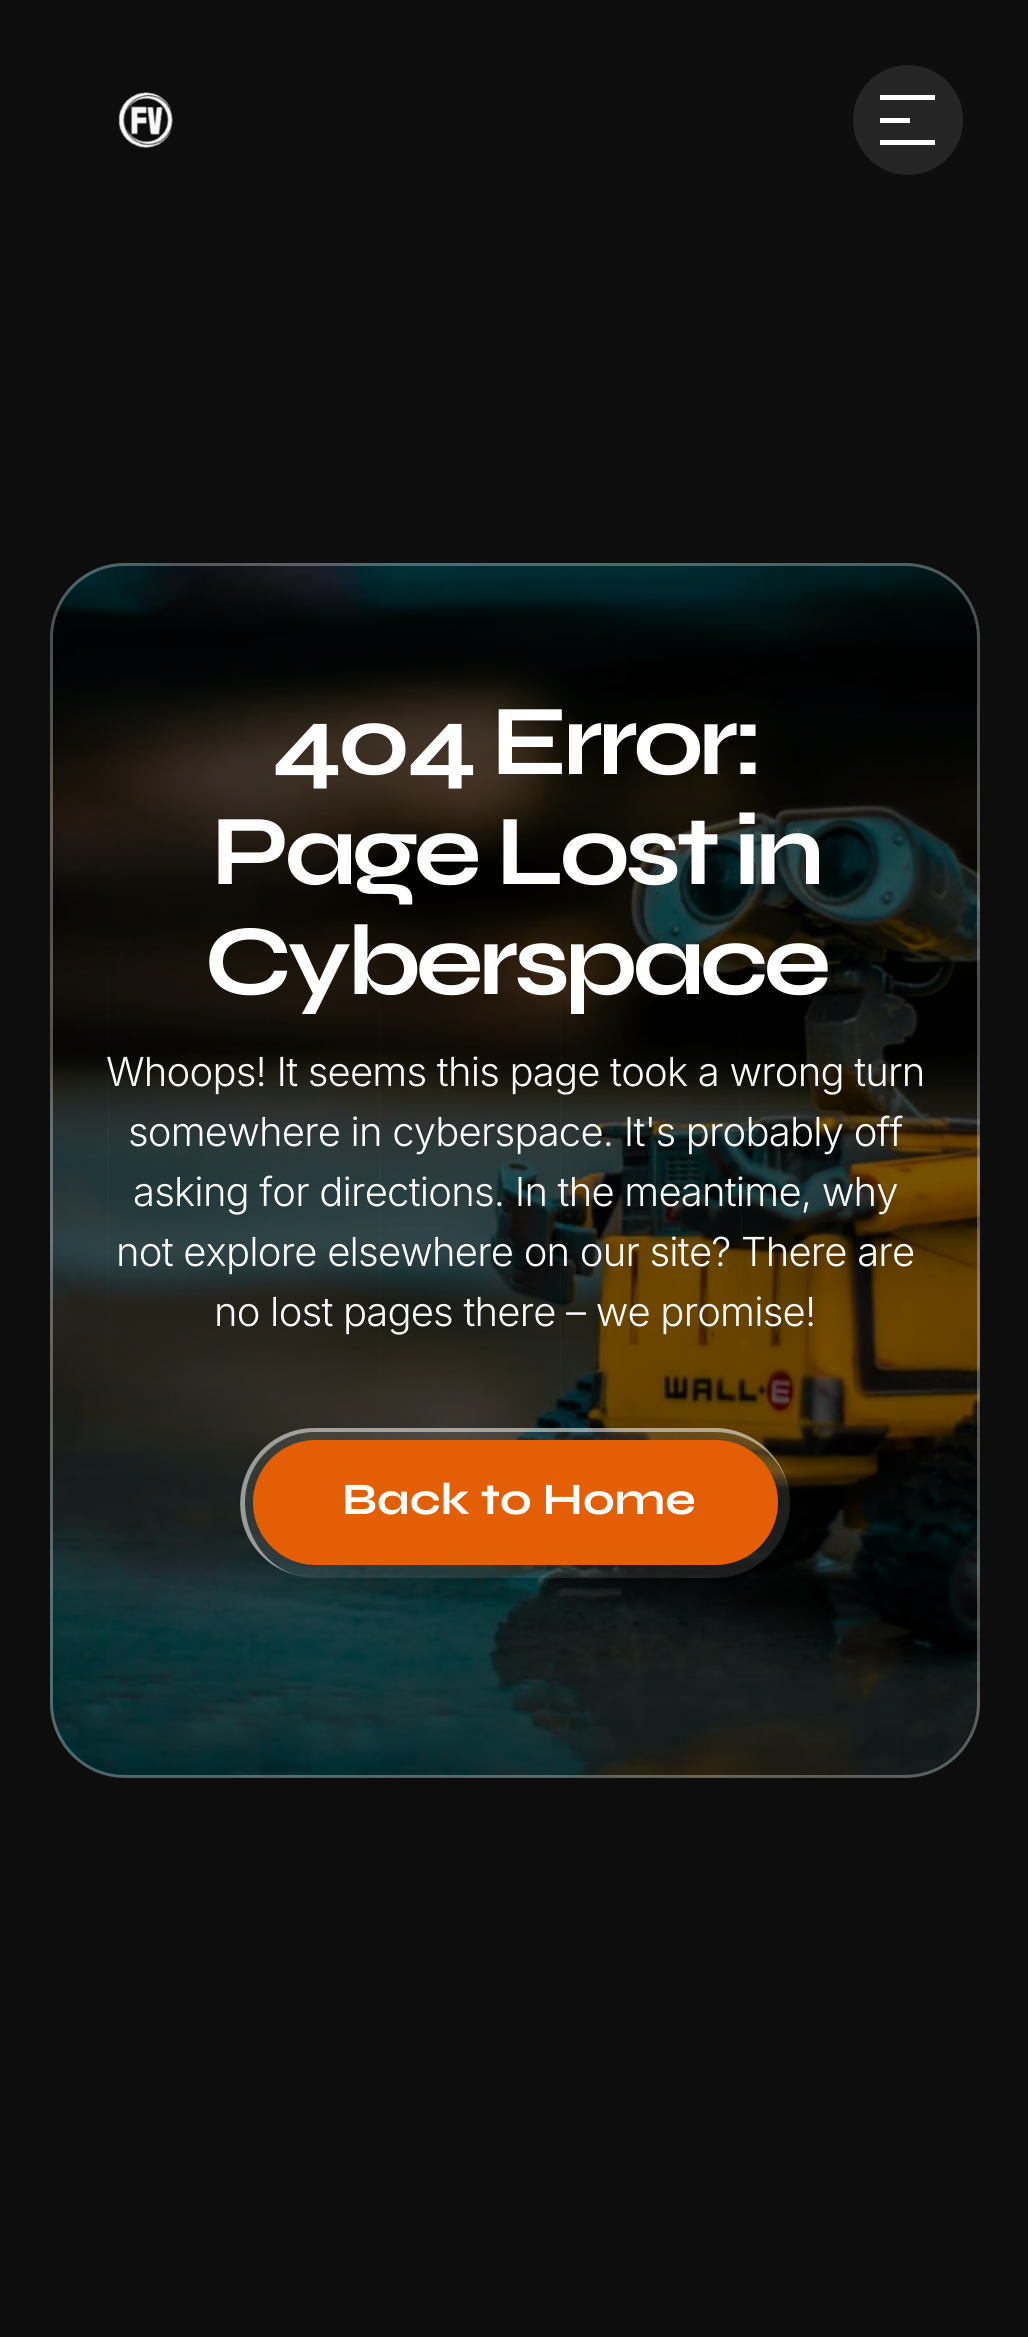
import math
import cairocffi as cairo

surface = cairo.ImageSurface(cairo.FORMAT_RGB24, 1028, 2337)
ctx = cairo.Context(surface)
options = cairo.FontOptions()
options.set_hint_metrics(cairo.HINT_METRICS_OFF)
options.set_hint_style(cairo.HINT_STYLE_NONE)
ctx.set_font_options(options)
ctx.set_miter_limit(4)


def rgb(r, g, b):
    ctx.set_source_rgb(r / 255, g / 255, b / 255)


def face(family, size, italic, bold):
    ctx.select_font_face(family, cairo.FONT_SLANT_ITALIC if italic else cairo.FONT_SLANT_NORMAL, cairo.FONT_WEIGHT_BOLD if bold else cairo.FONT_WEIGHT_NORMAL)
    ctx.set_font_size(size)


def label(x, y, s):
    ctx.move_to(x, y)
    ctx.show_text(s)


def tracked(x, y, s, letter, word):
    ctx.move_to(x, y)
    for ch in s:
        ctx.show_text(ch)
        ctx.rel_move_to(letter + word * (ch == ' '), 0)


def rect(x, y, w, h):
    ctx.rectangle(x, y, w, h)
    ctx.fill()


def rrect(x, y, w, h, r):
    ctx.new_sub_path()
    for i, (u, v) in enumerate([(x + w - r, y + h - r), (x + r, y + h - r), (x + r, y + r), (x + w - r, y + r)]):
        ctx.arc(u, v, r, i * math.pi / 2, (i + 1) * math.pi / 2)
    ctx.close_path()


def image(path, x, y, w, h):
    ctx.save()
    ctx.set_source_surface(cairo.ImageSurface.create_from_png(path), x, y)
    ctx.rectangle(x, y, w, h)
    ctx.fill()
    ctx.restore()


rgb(13, 13, 13)
ctx.paint()
image('image0.png', 118, 92, 55, 57)
rgb(37, 37, 37)
ctx.arc(908, 120, 55, 0, 2 * math.pi)
ctx.fill()
rgb(255, 255, 255)
rect(880, 95, 55, 5)
rect(880, 118, 30, 5)
rect(880, 140, 55, 5)
image('image1.png', 50, 562, 930, 1216)
rrect(51.5, 564.5, 927, 1212, 73.5)
ctx.set_source_rgba(1, 1, 1, 0.3)
ctx.set_line_width(3)
ctx.stroke()
face('Syne', 100, 0, 1)
rgb(255, 255, 255)
tracked(271, 774, '404 Error:', -5, 0)
tracked(211, 884, 'Page Lost in', -5, 0)
tracked(204, 994, 'Cyberspace', -5, 0)
face('Inter Light', 40, 0, 0)
tracked(106, 1086, 'Whoops! It seems this page took a wrong turn', -0.8, 0)
tracked(128, 1146, 'somewhere in cyberspace. It\'s probably off', -0.8, 0)
tracked(133, 1206, 'asking for directions. In the meantime, why', -0.8, 0)
tracked(116, 1266, 'not explore elsewhere on our site? There are', -0.8, 0)
tracked(214, 1326, 'no lost pages there – we promise!', -0.8, 0)
gradient = cairo.LinearGradient(253, 1396, 777, 1609)
gradient.add_color_stop_rgba(0, 1, 1, 1, 0.1)
gradient.add_color_stop_rgba(1, 1, 1, 1, 0.11)
ctx.set_source(gradient)
rrect(240, 1428, 550, 150, 75)
ctx.fill()
rgb(227, 94, 5)
rrect(253, 1440, 525, 125, 62.5)
ctx.fill()
face('Syne', 45, 0, 1)
rgb(255, 255, 255)
label(342, 1514, 'Back to Home')
ctx.set_source_rgba(1, 1, 1, 0.5)
ctx.new_path()
ctx.move_to(315, 1428)
ctx.curve_to(242, 1428, 212, 1523, 273, 1565)
ctx.curve_to(286, 1573, 300, 1578, 315, 1578)
ctx.curve_to(276, 1578, 245, 1544, 245, 1502)
ctx.curve_to(245, 1464, 276, 1432, 315, 1432)
ctx.line_to(715, 1432)
ctx.curve_to(752, 1432, 783, 1458, 789, 1491)
ctx.curve_to(783, 1455, 751, 1428, 715, 1428)
ctx.close_path()
ctx.fill()
surface.write_to_png('render.png')
